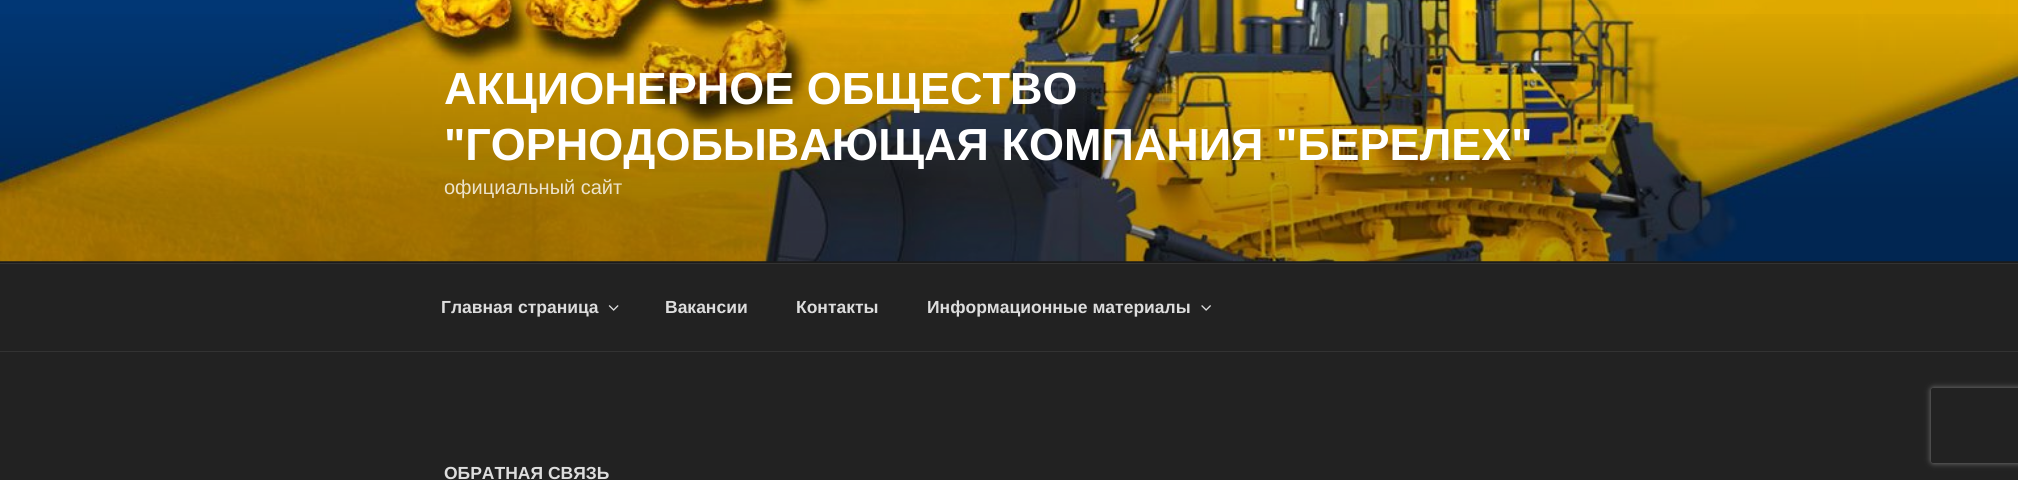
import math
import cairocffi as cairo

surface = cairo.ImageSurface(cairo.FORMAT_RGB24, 2018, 480)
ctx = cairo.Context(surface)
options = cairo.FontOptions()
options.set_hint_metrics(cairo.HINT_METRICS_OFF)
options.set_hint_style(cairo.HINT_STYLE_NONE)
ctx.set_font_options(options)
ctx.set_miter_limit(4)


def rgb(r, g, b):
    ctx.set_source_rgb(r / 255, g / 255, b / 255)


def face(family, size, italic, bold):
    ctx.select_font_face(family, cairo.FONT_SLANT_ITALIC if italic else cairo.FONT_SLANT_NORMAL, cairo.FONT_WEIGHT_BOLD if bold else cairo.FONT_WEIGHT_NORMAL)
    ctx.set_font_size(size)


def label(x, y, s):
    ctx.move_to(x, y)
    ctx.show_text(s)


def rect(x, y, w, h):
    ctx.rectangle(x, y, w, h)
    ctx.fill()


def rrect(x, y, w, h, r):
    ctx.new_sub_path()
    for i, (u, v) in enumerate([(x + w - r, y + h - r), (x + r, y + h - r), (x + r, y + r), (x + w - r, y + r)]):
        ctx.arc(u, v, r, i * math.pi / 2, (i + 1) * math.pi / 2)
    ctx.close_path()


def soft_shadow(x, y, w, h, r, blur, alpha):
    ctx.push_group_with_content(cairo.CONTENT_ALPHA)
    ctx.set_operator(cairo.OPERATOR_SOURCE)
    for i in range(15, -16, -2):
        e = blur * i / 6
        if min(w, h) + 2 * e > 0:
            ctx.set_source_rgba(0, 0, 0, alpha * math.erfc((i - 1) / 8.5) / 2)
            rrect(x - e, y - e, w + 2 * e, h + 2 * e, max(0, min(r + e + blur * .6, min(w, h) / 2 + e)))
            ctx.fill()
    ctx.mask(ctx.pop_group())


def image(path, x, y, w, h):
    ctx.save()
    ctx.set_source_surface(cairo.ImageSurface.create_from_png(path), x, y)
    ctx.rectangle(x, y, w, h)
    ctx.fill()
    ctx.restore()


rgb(34, 34, 34)
ctx.paint()
rgb(38, 38, 38)
rect(0, 261, 2018, 2)
image('image0.png', 0, 0, 2018, 262)
gradient = cairo.LinearGradient(1009, 0, 1009, 263)
gradient.add_color_stop_rgba(0, 0, 0, 0, 0)
gradient.add_color_stop_rgba(0.75, 0, 0, 0, 0.3)
gradient.add_color_stop_rgba(1, 0, 0, 0, 0.3)
ctx.set_source(gradient)
rect(0, 14, 2018, 249)
face('Liberation Sans', 45, 0, 1)
rgb(255, 255, 255)
label(444, 104, 'АКЦИОНЕРНОЕ ОБЩЕСТВО')
label(444, 160, '"ГОРНОДОБЫВАЮЩАЯ КОМПАНИЯ "БЕРЕЛЕХ"')
face('Liberation Sans', 20, 0, 0)
rgb(236, 227, 204)
label(444, 194, 'официальный сайт')
rgb(51, 51, 51)
rect(0, 263, 2018, 1)
rect(0, 351, 2018, 1)
face('Liberation Sans', 17.5, 0, 1)
rgb(221, 221, 221)
label(441, 313, 'Главная страница')
image('image1.png', 608, 305, 11, 6)
label(665, 313, 'Вакансии')
label(796, 313, 'Контакты')
label(927, 313, 'Информационные материалы')
image('image2.png', 1201, 305, 10, 6)
label(444, 479, 'ОБРАТНАЯ СВЯЗЬ')
ctx.save()
ctx.set_fill_rule(cairo.FILL_RULE_EVEN_ODD)
ctx.new_path()
ctx.move_to(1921, 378)
ctx.line_to(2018, 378)
ctx.line_to(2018, 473)
ctx.line_to(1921, 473)
ctx.close_path()
ctx.move_to(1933.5, 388)
ctx.line_to(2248.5, 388)
ctx.curve_to(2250, 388, 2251, 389, 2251, 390.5)
ctx.line_to(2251, 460.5)
ctx.curve_to(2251, 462, 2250, 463, 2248.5, 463)
ctx.line_to(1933.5, 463)
ctx.curve_to(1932, 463, 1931, 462, 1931, 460.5)
ctx.line_to(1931, 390.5)
ctx.curve_to(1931, 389, 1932, 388, 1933.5, 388)
ctx.close_path()
ctx.clip()
rgb(128, 128, 128)
soft_shadow(1931, 388, 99, 75, 2.5, 3, 1)
ctx.restore()
surface.write_to_png('render.png')
